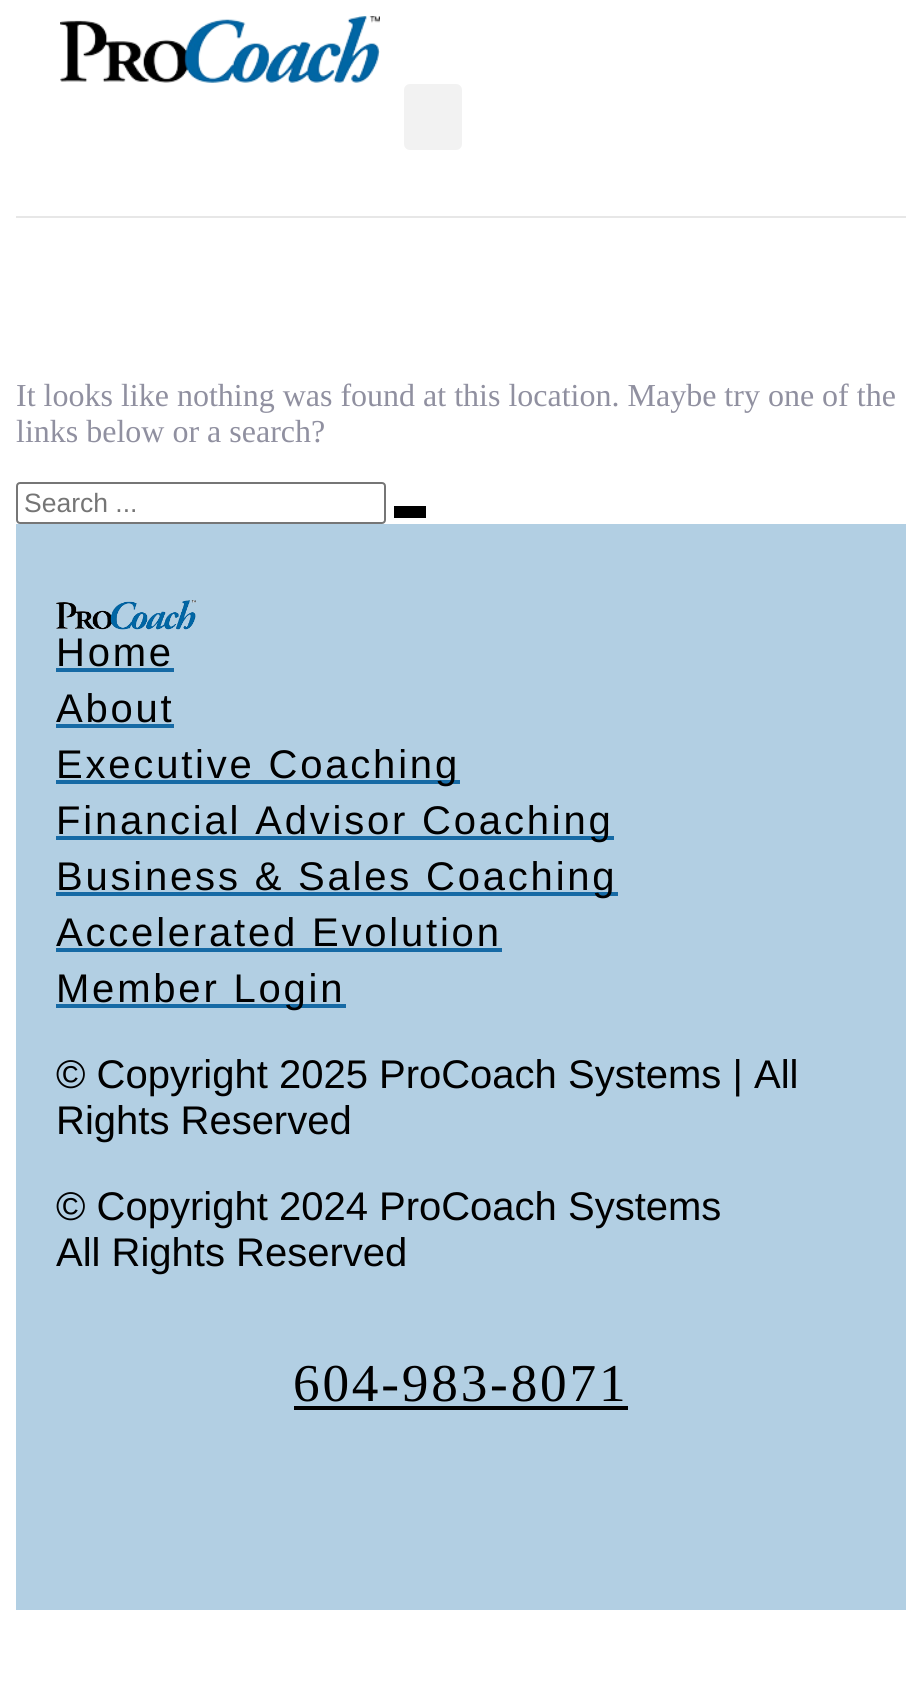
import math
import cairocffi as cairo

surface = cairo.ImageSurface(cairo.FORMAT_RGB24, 922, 1695)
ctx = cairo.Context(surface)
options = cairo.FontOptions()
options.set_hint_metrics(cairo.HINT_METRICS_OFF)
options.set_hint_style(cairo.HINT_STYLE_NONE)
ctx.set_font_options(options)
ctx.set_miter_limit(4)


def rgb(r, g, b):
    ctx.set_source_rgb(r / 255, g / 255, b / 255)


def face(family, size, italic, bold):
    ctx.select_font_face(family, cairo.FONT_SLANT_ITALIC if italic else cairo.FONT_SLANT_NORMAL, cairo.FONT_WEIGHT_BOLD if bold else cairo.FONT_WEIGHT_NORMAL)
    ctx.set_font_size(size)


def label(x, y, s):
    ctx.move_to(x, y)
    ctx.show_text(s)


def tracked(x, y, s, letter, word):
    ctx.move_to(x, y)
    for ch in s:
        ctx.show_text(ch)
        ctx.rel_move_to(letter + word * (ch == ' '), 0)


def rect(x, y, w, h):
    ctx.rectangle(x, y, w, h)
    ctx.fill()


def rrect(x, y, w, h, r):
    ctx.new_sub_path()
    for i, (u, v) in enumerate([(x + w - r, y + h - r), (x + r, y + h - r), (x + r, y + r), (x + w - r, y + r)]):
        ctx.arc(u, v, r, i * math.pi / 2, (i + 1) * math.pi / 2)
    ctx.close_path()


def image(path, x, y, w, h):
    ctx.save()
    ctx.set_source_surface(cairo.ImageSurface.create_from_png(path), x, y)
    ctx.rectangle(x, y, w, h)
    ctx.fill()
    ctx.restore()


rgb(255, 255, 255)
ctx.paint()
rgb(231, 231, 231)
rect(16, 216, 890, 2)
image('image0.png', 60, 16, 320, 67)
rgb(242, 242, 242)
rrect(404, 84, 58, 66, 6)
ctx.fill()
face('Liberation Serif', 32, 0, 0)
rgb(144, 144, 160)
label(16, 406, 'It looks like nothing was found at this location. Maybe try one of the')
label(16, 442, 'links below or a search?')
rrect(17, 483, 368, 40, 3)
rgb(118, 118, 118)
ctx.stroke()
face('Liberation Sans', 26.5, 0, 0)
rgb(117, 117, 117)
label(24, 512, 'Search ...')
rgb(0, 0, 0)
rect(394, 506, 32, 12)
rgb(178, 207, 227)
rect(16, 524, 890, 1086)
image('image1.png', 56, 600, 140, 30)
face('Liberation Sans', 40, 0, 0)
rgb(0, 0, 0)
tracked(56, 666, 'Home', 2.8, 0)
rgb(22, 106, 165)
rect(56, 668, 118, 4)
rgb(0, 0, 0)
tracked(56, 722, 'About', 2.8, 0)
rgb(22, 106, 165)
rect(56, 724, 118, 4)
rect(56, 780, 404, 4)
rgb(0, 0, 0)
tracked(56, 778, 'Executive Coaching', 2.8, 0)
rgb(22, 106, 165)
rect(56, 836, 558, 4)
rgb(0, 0, 0)
tracked(56, 834, 'Financial Advisor Coaching', 2.8, 0)
rgb(22, 106, 165)
rect(56, 892, 562, 4)
rgb(0, 0, 0)
tracked(56, 890, 'Business & Sales Coaching', 2.8, 0)
tracked(56, 946, 'Accelerated Evolution', 2.8, 0)
rgb(22, 106, 165)
rect(56, 948, 446, 4)
rect(56, 1004, 290, 4)
rgb(0, 0, 0)
tracked(56, 1002, 'Member Login', 2.8, 0)
label(56, 1088, '© Copyright 2025 ProCoach Systems | All')
label(56, 1134, 'Rights Reserved')
label(56, 1220, '© Copyright 2024 ProCoach Systems')
label(56, 1266, 'All Rights Reserved')
face('Liberation Serif', 53.25, 0, 0)
tracked(293, 1401, '604-983-8071', 2.8, 0)
rect(294, 1406, 334, 4)
surface.write_to_png('render.png')
